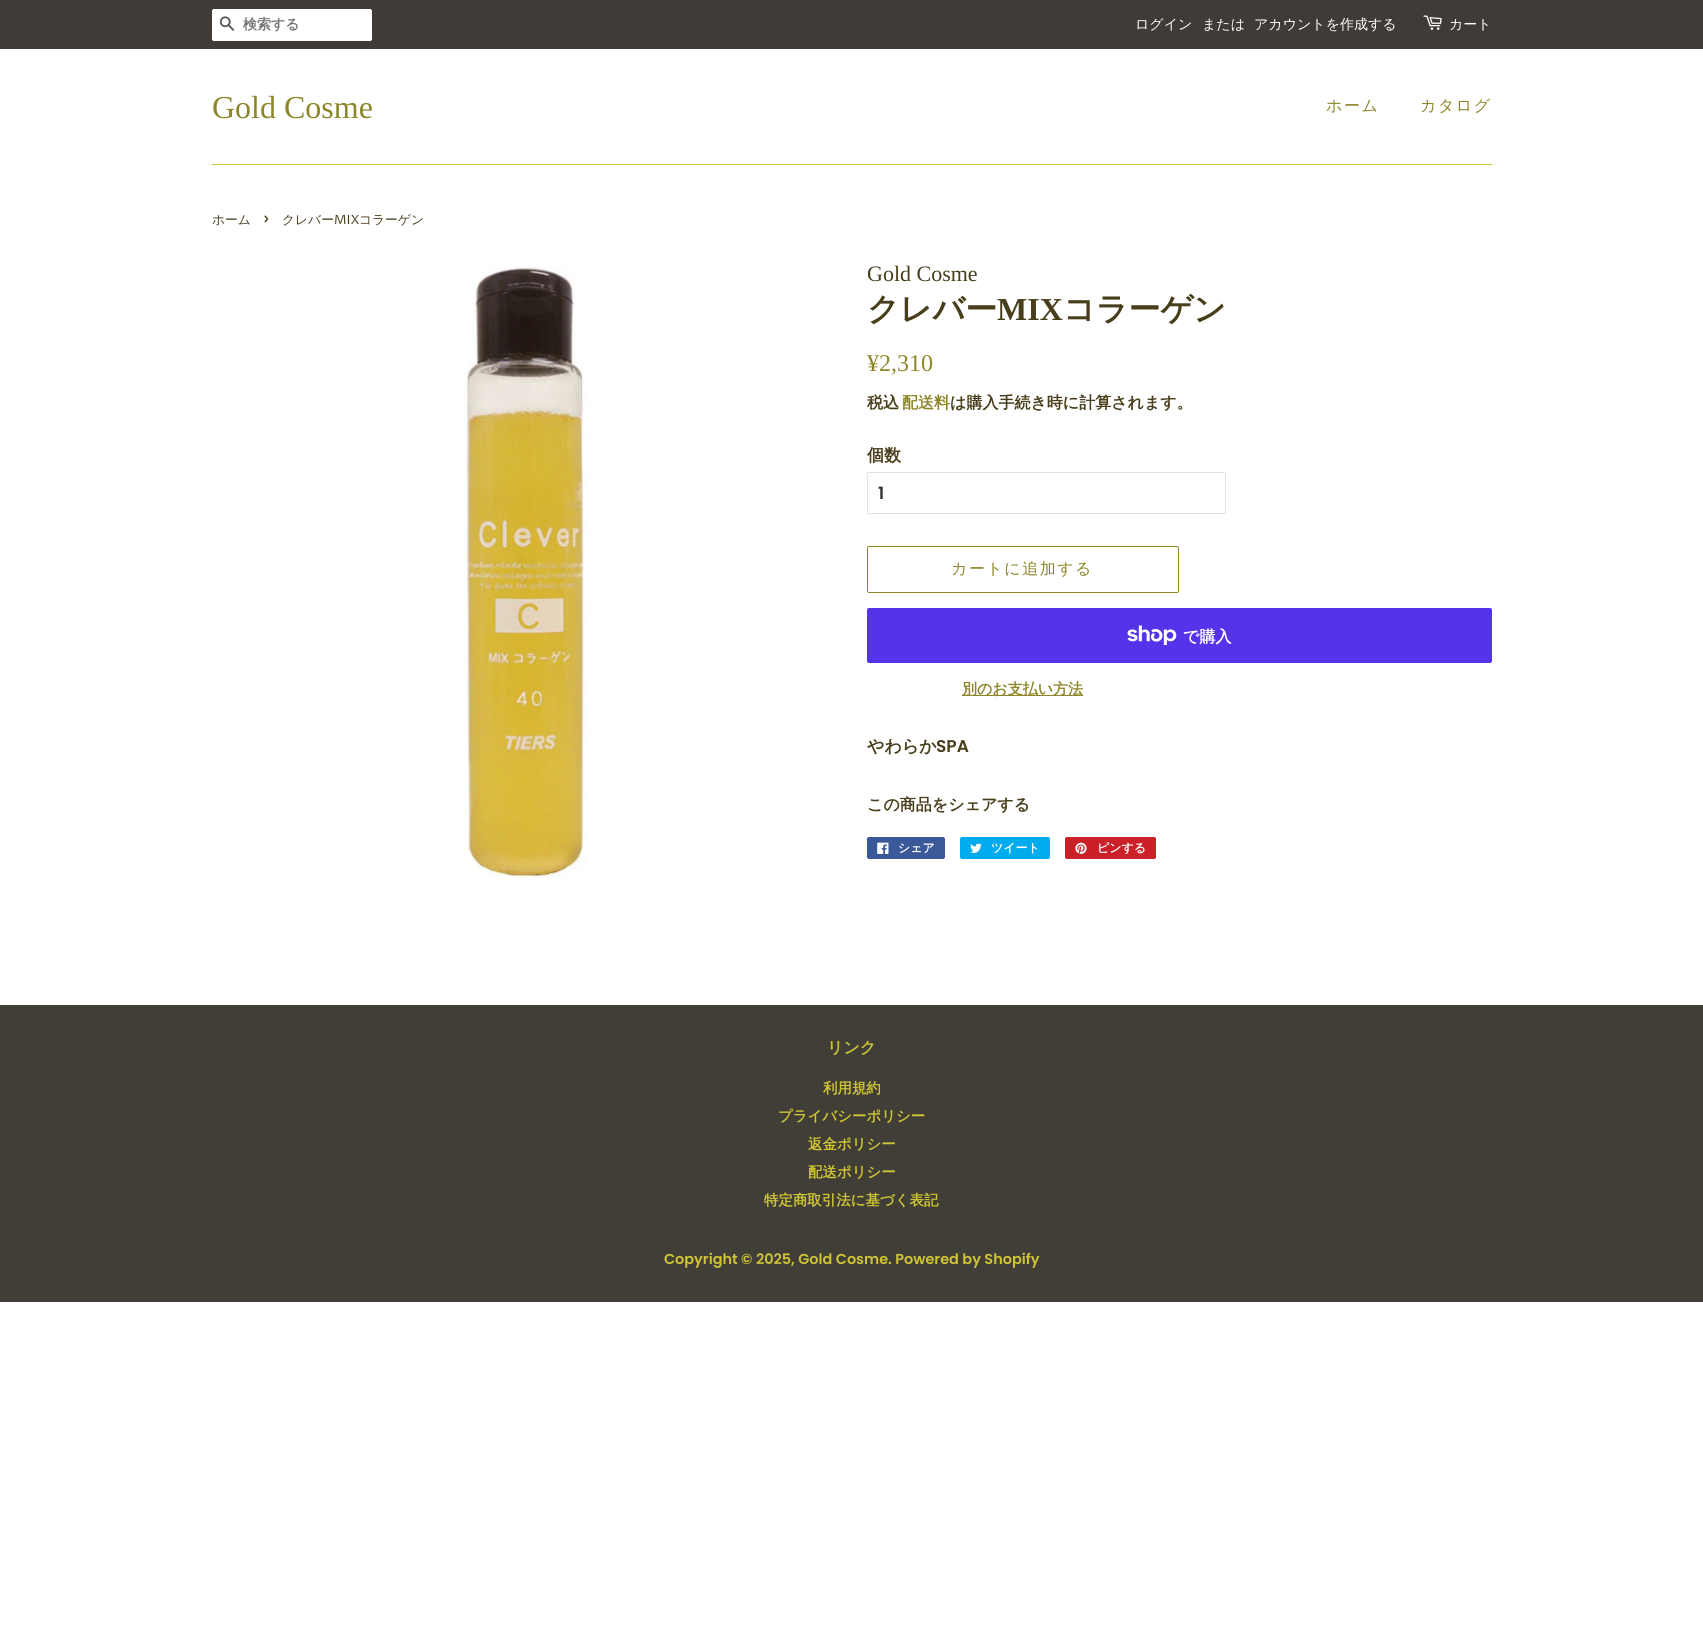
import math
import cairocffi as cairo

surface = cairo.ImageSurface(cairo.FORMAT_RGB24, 1703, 1629)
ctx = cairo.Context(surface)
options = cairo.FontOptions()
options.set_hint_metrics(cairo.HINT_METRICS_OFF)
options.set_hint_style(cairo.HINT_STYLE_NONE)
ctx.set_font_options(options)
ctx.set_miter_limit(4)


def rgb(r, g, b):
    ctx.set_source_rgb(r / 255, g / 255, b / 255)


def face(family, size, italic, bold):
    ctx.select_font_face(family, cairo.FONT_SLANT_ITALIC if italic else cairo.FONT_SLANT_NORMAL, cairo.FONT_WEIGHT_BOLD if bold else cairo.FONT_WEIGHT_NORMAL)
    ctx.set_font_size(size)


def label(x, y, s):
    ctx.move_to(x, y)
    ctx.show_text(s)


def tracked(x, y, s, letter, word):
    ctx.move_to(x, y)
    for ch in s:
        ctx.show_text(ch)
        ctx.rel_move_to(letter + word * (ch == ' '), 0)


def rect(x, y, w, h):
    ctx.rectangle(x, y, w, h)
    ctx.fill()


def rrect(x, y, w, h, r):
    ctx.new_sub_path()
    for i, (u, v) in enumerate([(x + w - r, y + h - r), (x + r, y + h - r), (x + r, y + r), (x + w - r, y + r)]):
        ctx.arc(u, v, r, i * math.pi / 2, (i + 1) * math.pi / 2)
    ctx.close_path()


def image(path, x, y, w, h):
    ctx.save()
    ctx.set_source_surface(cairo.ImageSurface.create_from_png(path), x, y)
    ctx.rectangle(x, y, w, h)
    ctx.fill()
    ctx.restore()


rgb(255, 255, 255)
ctx.paint()
rgb(64, 59, 55)
rect(0, 0, 1703, 49)
rgb(255, 255, 255)
rrect(212, 9, 160, 32, 2)
ctx.fill()
image('image0.png', 219, 16, 16, 15)
face('WenQuanYi Zen Hei', 14, 0, 1)
rgb(117, 117, 117)
label(243, 29, '検索する')
face('WenQuanYi Zen Hei Medium', 14, 0, 0)
rgb(255, 255, 255)
label(1135, 29, 'ログイン')
label(1202, 29, 'または')
label(1254, 29, 'アカウントを作成する')
image('image1.png', 1423, 15, 19, 15)
label(1449, 29, 'カート')
rgb(206, 196, 53)
rect(212, 164, 1280, 1)
face('Liberation Serif', 32, 0, 0)
rgb(142, 135, 42)
label(212, 118, 'Gold Cosme')
face('WenQuanYi Zen Hei Medium', 16, 0, 0)
tracked(1326, 111, 'ホーム', 1.5, 0)
tracked(1420, 111, 'カタログ', 1.5, 0)
face('WenQuanYi Zen Hei Medium', 12.75, 0, 0)
rgb(72, 62, 27)
label(212, 224, 'ホーム')
face('Proza Libre', 18, 0, 0)
label(263, 224, '›')
face('WenQuanYi Zen Hei Medium', 12.75, 0, 0)
label(282, 224, 'クレバー')
face('Proza Libre', 12.75, 0, 0)
label(334, 224, 'MIX')
face('WenQuanYi Zen Hei Medium', 12.75, 0, 0)
label(359, 224, 'コラーゲン')
image('image2.png', 462, 267, 125, 610)
face('Liberation Serif', 22, 0, 0)
label(867, 281, 'Gold Cosme')
face('WenQuanYi Zen Hei', 32, 0, 1)
label(867, 320, 'クレバー')
face('Liberation Serif', 32, 0, 1)
label(997, 320, 'MIX')
face('WenQuanYi Zen Hei', 32, 0, 1)
label(1063, 320, 'コラーゲン')
face('Liberation Serif', 24, 0, 0)
rgb(142, 135, 42)
label(867, 371, '¥2,310')
face('WenQuanYi Zen Hei', 16, 0, 1)
rgb(72, 62, 27)
label(867, 408, '税込')
rgb(142, 135, 42)
label(902, 408, '配送料')
rgb(72, 62, 27)
label(950, 408, 'は購入手続き時に計算されます。')
face('WenQuanYi Zen Hei', 17, 0, 1)
label(867, 461, '個数')
rrect(867.5, 472.5, 358, 41, 1.5)
rgb(228, 226, 221)
ctx.set_line_width(1)
ctx.stroke()
face('Poppins SemiBold', 17, 0, 0)
rgb(51, 51, 51)
label(878, 499, '1')
rrect(867.5, 546.5, 311, 46, 1.5)
rgb(142, 135, 42)
ctx.stroke()
face('WenQuanYi Zen Hei Medium', 16, 0, 0)
tracked(951, 574, 'カートに追加する', 1.5, 0)
rgb(84, 51, 235)
rrect(867, 608, 625, 55, 2)
ctx.fill()
image('image3.png', 1127, 625, 50, 20)
face('WenQuanYi Zen Hei', 16, 0, 1)
rgb(255, 255, 255)
label(1183, 642, 'で購入')
rgb(142, 135, 42)
rect(962, 695, 121, 1)
face('WenQuanYi Zen Hei', 15, 0, 1)
label(962, 694, '別のお支払い方法')
face('WenQuanYi Zen Hei', 17, 0, 1)
rgb(72, 62, 27)
label(867, 752, 'やわらか')
face('Poppins SemiBold', 17, 0, 0)
label(936, 752, 'SPA')
face('WenQuanYi Zen Hei', 16, 0, 1)
label(867, 810, 'この商品をシェアする')
rgb(59, 89, 152)
rrect(867, 837, 78, 22, 2)
ctx.fill()
image('image4.png', 877, 842, 12, 12)
face('WenQuanYi Zen Hei', 12, 0, 1)
rgb(255, 255, 255)
label(898, 852, 'シェア')
rgb(0, 172, 237)
rrect(960, 837, 90, 22, 2)
ctx.fill()
image('image5.png', 970, 843, 12, 10)
rgb(255, 255, 255)
label(991, 852, 'ツイート')
rgb(203, 32, 39)
rrect(1065, 837, 91, 22, 2)
ctx.fill()
image('image6.png', 1075, 842, 12, 12)
rgb(255, 255, 255)
label(1097, 852, 'ピンする')
rgb(64, 62, 55)
rect(0, 1005, 1703, 297)
face('WenQuanYi Zen Hei', 16, 0, 1)
rgb(206, 196, 53)
label(827, 1053, 'リンク')
face('WenQuanYi Zen Hei', 14.45, 0, 1)
label(823, 1093, '利用規約')
label(778, 1121, 'プライバシーポリシー')
label(808, 1149, '返金ポリシー')
label(808, 1177, '配送ポリシー')
label(764, 1205, '特定商取引法に基づく表記')
face('Poppins SemiBold', 14.45, 0, 0)
label(664, 1264, 'Copyright © 2025, Gold Cosme. Powered by Shopify')
surface.write_to_png('render.png')
